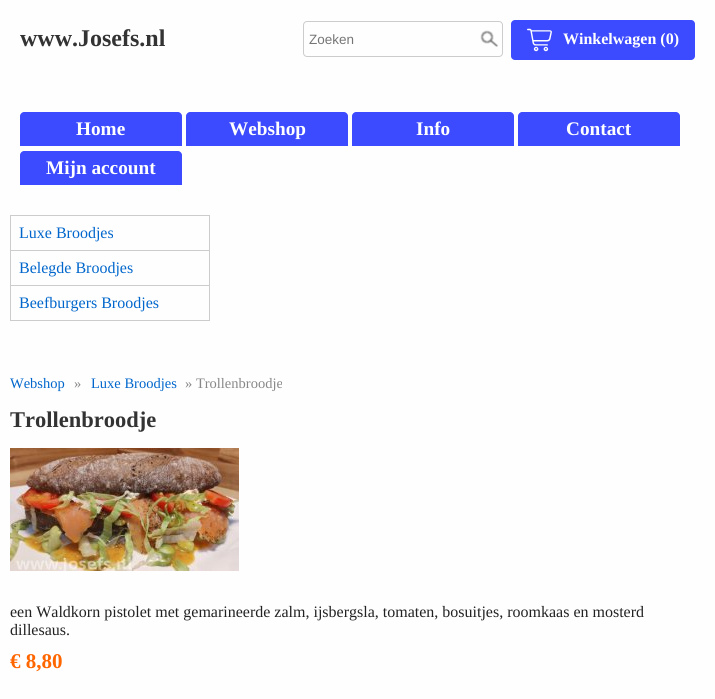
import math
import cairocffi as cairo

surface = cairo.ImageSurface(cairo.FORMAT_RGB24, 715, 699)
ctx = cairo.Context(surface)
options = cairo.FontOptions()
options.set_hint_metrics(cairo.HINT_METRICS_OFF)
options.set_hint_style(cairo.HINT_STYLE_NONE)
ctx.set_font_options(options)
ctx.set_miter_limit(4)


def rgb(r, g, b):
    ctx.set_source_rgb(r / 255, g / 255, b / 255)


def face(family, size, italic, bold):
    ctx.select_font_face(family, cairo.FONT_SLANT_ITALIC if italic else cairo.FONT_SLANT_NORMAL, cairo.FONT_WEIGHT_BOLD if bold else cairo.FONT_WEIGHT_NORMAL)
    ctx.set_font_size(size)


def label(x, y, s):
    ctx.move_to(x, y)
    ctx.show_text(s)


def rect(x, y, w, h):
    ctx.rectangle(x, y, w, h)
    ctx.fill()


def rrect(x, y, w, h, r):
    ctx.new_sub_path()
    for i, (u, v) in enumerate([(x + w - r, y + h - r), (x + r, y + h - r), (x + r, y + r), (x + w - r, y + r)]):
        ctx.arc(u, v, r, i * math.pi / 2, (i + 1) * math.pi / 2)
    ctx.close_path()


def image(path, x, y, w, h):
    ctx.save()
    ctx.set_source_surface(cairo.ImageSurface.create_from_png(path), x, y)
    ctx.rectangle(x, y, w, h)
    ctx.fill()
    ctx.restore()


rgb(254, 254, 254)
ctx.paint()
face('Liberation Serif', 24, 0, 1)
rgb(51, 51, 51)
label(20, 46, 'www.Josefs.nl')
rrect(303.5, 21.5, 199, 35, 3.5)
rgb(204, 204, 204)
ctx.set_line_width(1)
ctx.stroke()
face('Liberation Sans', 13.5, 0, 0)
rgb(117, 117, 117)
label(309, 44, 'Zoeken')
image('image0.png', 480, 30, 18, 17)
rgb(60, 75, 255)
rrect(511, 20, 184, 40, 4)
ctx.fill()
image('image1.png', 527, 28, 25, 24)
face('Liberation Serif', 16, 0, 1)
rgb(255, 255, 255)
label(563, 44, 'Winkelwagen (0)')
rgb(60, 75, 255)
ctx.new_path()
ctx.move_to(24, 112)
ctx.line_to(178, 112)
ctx.curve_to(180, 112, 182, 114, 182, 116)
ctx.line_to(182, 146)
ctx.line_to(20, 146)
ctx.line_to(20, 116)
ctx.curve_to(20, 114, 22, 112, 24, 112)
ctx.close_path()
ctx.fill()
face('Liberation Serif', 19.25, 0, 1)
rgb(255, 255, 255)
label(76, 135, 'Home')
rgb(60, 75, 255)
ctx.new_path()
ctx.move_to(190, 112)
ctx.line_to(344, 112)
ctx.curve_to(346, 112, 348, 114, 348, 116)
ctx.line_to(348, 146)
ctx.line_to(186, 146)
ctx.line_to(186, 116)
ctx.curve_to(186, 114, 188, 112, 190, 112)
ctx.close_path()
ctx.fill()
rgb(255, 255, 255)
label(229, 135, 'Webshop')
rgb(60, 75, 255)
ctx.new_path()
ctx.move_to(356, 112)
ctx.line_to(510, 112)
ctx.curve_to(512, 112, 514, 114, 514, 116)
ctx.line_to(514, 146)
ctx.line_to(352, 146)
ctx.line_to(352, 116)
ctx.curve_to(352, 114, 354, 112, 356, 112)
ctx.close_path()
ctx.fill()
rgb(255, 255, 255)
label(416, 135, 'Info')
rgb(60, 75, 255)
ctx.new_path()
ctx.move_to(522, 112)
ctx.line_to(676, 112)
ctx.curve_to(678, 112, 680, 114, 680, 116)
ctx.line_to(680, 146)
ctx.line_to(518, 146)
ctx.line_to(518, 116)
ctx.curve_to(518, 114, 520, 112, 522, 112)
ctx.close_path()
ctx.fill()
rgb(255, 255, 255)
label(566, 135, 'Contact')
rgb(60, 75, 255)
ctx.new_path()
ctx.move_to(24, 151)
ctx.line_to(178, 151)
ctx.curve_to(180, 151, 182, 153, 182, 155)
ctx.line_to(182, 185)
ctx.line_to(20, 185)
ctx.line_to(20, 155)
ctx.curve_to(20, 153, 22, 151, 24, 151)
ctx.close_path()
ctx.fill()
rgb(255, 255, 255)
label(46, 174, 'Mijn account')
ctx.rectangle(10.5, 215.5, 199, 105)
rgb(204, 204, 204)
ctx.stroke()
rect(11, 250, 198, 1)
face('Liberation Serif', 16, 0, 0)
rgb(0, 102, 204)
label(19, 238, 'Luxe Broodjes')
rgb(204, 204, 204)
rect(11, 285, 198, 1)
rgb(0, 102, 204)
label(19, 273, 'Belegde Broodjes')
label(19, 308, 'Beefburgers Broodjes')
face('Liberation Serif', 14.5, 0, 0)
label(10, 388, 'Webshop')
rgb(136, 136, 136)
label(74, 388, '»')
rgb(0, 102, 204)
label(91, 388, 'Luxe Broodjes')
rgb(136, 136, 136)
label(185, 388, '» Trollenbroodje')
face('Liberation Serif', 22.5, 0, 1)
rgb(51, 51, 51)
label(10, 427, 'Trollenbroodje')
image('image2.png', 10, 448, 229, 123)
face('Liberation Serif', 16, 0, 0)
rgb(34, 34, 34)
label(10, 617, 'een Waldkorn pistolet met gemarineerde zalm, ijsbergsla, tomaten, bosuitjes, roomkaas en mosterd')
label(10, 635, 'dillesaus.')
face('Liberation Serif', 21, 0, 1)
rgb(255, 102, 0)
label(10, 668, '€ 8,80')
surface.write_to_png('render.png')
